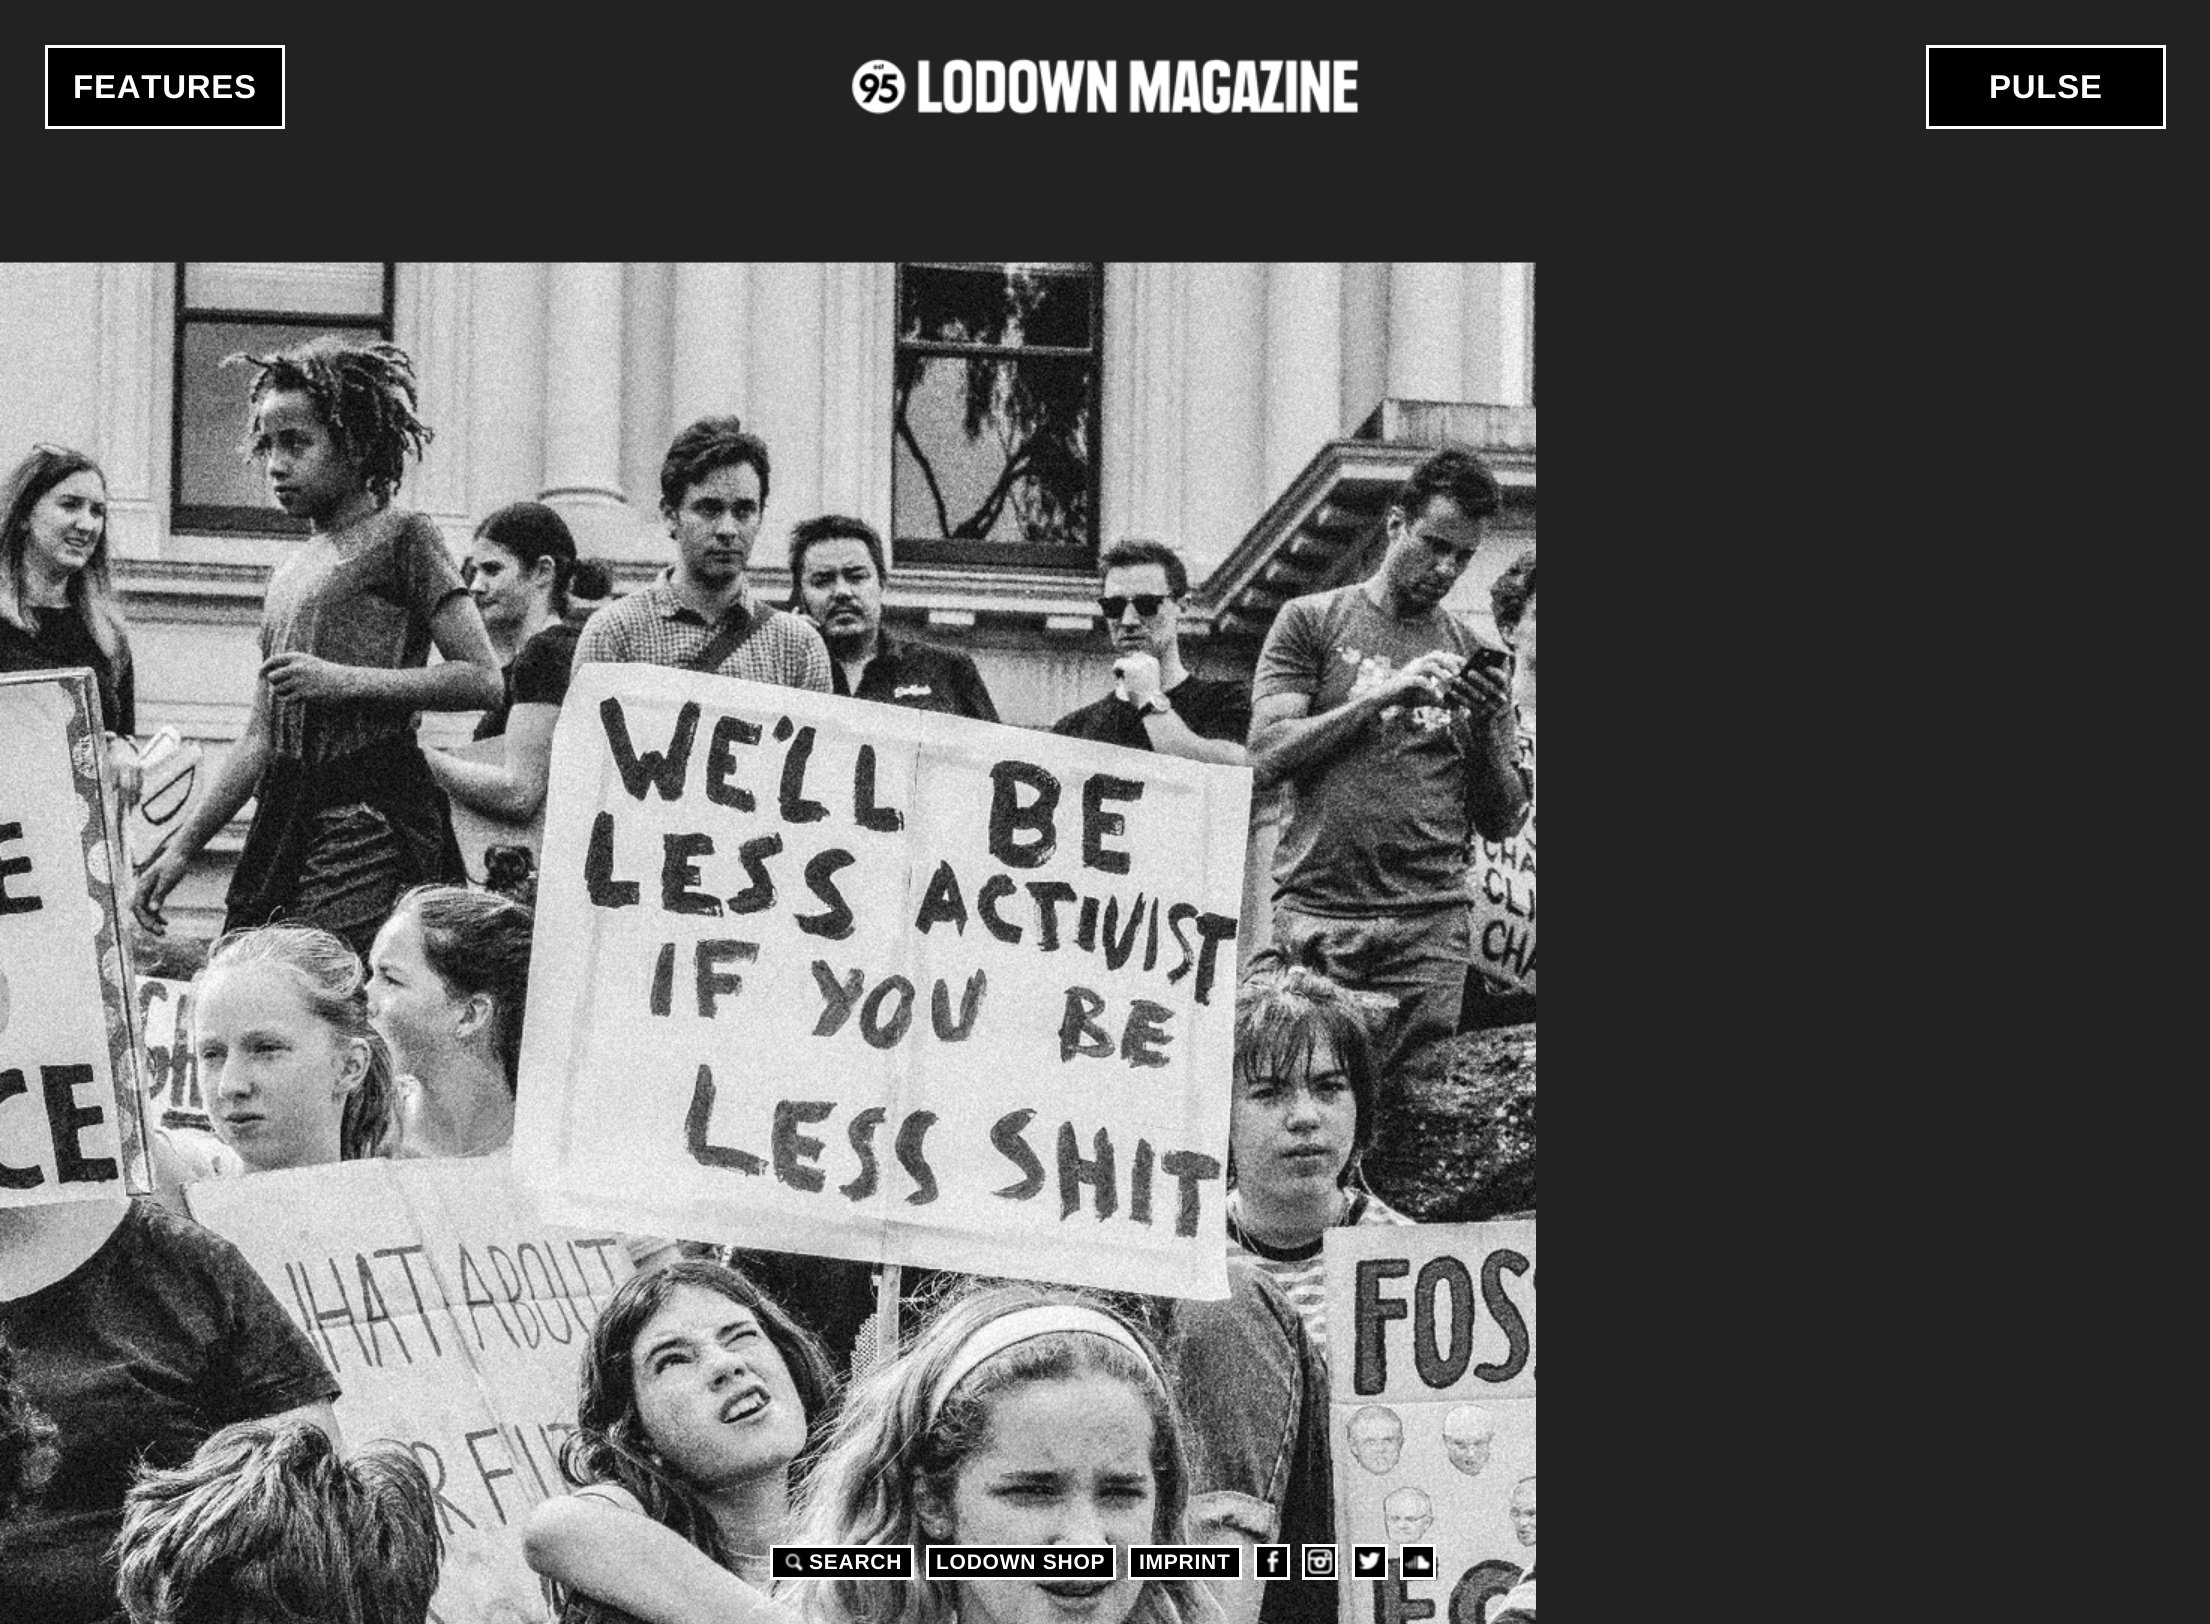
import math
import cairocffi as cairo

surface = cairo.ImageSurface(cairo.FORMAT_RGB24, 2210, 1624)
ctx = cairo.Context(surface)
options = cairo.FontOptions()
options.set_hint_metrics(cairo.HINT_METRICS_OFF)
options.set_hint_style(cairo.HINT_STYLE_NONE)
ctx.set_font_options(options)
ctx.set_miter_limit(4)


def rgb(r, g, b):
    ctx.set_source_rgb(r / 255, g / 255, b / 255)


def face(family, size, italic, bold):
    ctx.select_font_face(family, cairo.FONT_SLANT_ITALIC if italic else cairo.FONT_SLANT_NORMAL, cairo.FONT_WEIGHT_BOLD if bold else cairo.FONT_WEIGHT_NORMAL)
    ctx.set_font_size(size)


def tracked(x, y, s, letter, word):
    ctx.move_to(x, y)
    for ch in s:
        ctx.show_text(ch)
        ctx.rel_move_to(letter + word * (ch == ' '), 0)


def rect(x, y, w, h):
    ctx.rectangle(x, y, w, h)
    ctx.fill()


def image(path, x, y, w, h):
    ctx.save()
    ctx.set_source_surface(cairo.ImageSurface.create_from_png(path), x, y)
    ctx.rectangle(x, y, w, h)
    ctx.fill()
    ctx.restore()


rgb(34, 34, 34)
ctx.paint()
image('image0.png', 851, 58, 508, 57)
rgb(0, 0, 0)
ctx.rectangle(46.5, 46.5, 237, 81)
ctx.fill_preserve()
rgb(255, 255, 255)
ctx.set_line_width(3)
ctx.stroke()
face('Liberation Sans', 33, 0, 1)
tracked(73, 98, 'FEATURES', 0.75, 0)
rgb(0, 0, 0)
ctx.rectangle(1927.5, 46.5, 237, 81)
ctx.fill_preserve()
rgb(255, 255, 255)
ctx.stroke()
tracked(1989, 98, 'PULSE', 0.75, 0)
image('image1.png', 0, 262, 1536, 1362)
rgb(0, 0, 0)
ctx.rectangle(771.5, 1546.5, 141, 32)
ctx.fill_preserve()
rgb(255, 255, 255)
ctx.stroke()
image('image2.png', 785, 1553, 19, 19)
face('Liberation Sans', 21, 0, 1)
tracked(809, 1569, 'SEARCH', 0.75, 0)
rgb(0, 0, 0)
ctx.rectangle(927.5, 1546.5, 187, 32)
ctx.fill_preserve()
rgb(255, 255, 255)
ctx.stroke()
tracked(936, 1569, 'LODOWN SHOP', 0.75, 0)
rgb(0, 0, 0)
ctx.rectangle(1129.5, 1546.5, 111, 32)
ctx.fill_preserve()
rgb(255, 255, 255)
ctx.stroke()
tracked(1139, 1569, 'IMPRINT', 0.75, 0)
rgb(0, 0, 0)
rect(1257, 1547, 30, 30)
image('image3.png', 1266, 1550, 13, 23)
ctx.rectangle(1255.5, 1545.5, 33, 33)
rgb(255, 255, 255)
ctx.stroke()
rgb(0, 0, 0)
rect(1305, 1547, 30, 30)
image('image4.png', 1307, 1548, 26, 27)
ctx.rectangle(1303.5, 1545.5, 33, 33)
rgb(255, 255, 255)
ctx.stroke()
rgb(0, 0, 0)
rect(1355, 1547, 30, 30)
image('image5.png', 1358, 1551, 23, 19)
ctx.rectangle(1353.5, 1545.5, 33, 33)
rgb(255, 255, 255)
ctx.stroke()
rgb(0, 0, 0)
rect(1403, 1547, 30, 30)
image('image6.png', 1404, 1554, 27, 16)
ctx.rectangle(1401.5, 1545.5, 33, 33)
rgb(255, 255, 255)
ctx.stroke()
surface.write_to_png('render.png')
